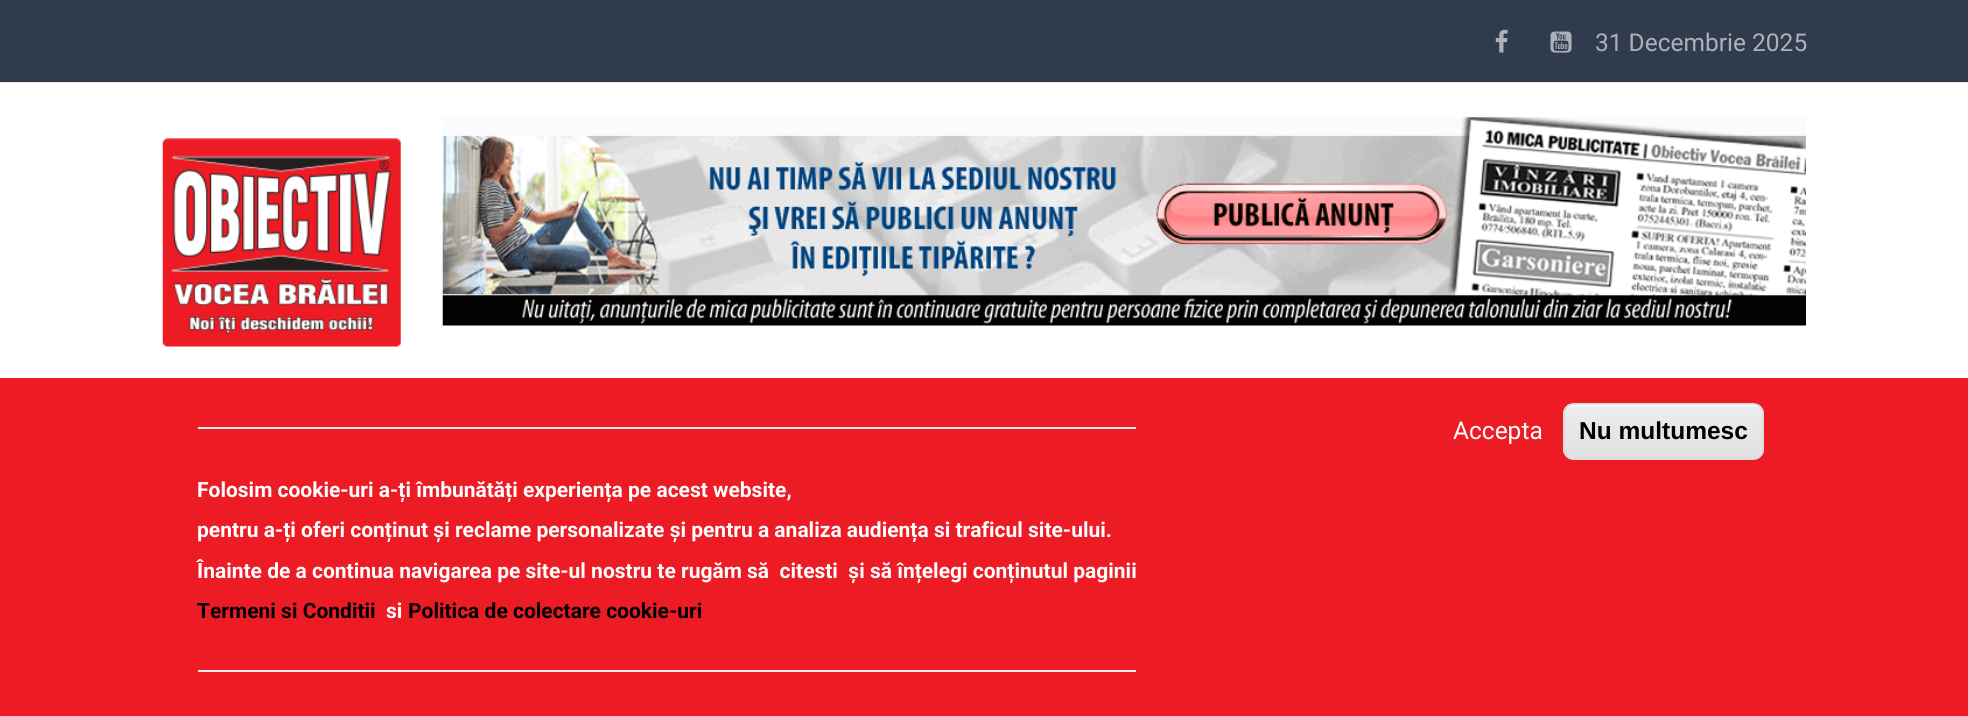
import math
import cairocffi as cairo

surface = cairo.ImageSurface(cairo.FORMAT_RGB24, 1968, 716)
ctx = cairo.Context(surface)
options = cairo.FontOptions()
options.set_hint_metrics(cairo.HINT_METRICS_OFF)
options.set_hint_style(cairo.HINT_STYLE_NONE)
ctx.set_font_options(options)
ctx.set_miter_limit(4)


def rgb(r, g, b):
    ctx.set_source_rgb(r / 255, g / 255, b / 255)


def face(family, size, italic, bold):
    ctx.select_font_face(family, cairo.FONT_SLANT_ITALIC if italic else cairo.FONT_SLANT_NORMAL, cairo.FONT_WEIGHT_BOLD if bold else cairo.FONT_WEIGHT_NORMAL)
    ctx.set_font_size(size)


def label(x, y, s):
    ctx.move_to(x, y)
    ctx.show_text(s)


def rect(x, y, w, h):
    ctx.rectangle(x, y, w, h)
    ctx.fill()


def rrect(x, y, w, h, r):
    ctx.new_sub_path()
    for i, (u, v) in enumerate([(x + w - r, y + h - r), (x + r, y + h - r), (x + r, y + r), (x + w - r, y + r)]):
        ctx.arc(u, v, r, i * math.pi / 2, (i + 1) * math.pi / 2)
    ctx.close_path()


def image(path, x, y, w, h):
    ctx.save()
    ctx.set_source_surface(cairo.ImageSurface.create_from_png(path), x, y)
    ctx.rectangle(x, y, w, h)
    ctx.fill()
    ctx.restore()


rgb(255, 255, 255)
ctx.paint()
rgb(230, 230, 230)
rect(0, 82, 1968, 1)
rgb(48, 60, 77)
rect(0, 0, 1968, 81)
rgb(43, 54, 69)
rect(0, 81, 1968, 1)
image('image0.png', 1495, 29, 13, 24)
image('image1.png', 1550, 31, 22, 22)
face('Roboto', 24.5, 0, 0)
rgb(172, 177, 184)
label(1595, 51, '31 Decembrie 2025')
image('image2.png', 162, 138, 239, 209)
image('image3.png', 442, 117, 1364, 209)
rgb(237, 27, 36)
rect(0, 378, 1968, 338)
rgb(255, 255, 255)
label(1453, 439, 'Accepta')
ctx.save()
rrect(1563, 403, 201, 57, 11)
ctx.clip()
gradient = cairo.LinearGradient(1663, 404, 1663, 459)
gradient.add_color_stop_rgba(0.05, 0.929, 0.929, 0.929, 1)
gradient.add_color_stop_rgba(1, 0.875, 0.875, 0.875, 1)
ctx.set_source(gradient)
rect(1563, 404, 201, 55)
ctx.restore()
ctx.new_path()
ctx.move_to(1573, 406)
ctx.line_to(1754, 406)
ctx.curve_to(1758, 406, 1762, 410, 1762, 415)
ctx.line_to(1762, 413)
ctx.curve_to(1762, 408, 1758, 404, 1753, 404)
ctx.line_to(1574, 404)
ctx.curve_to(1570, 404, 1567, 406, 1566, 410)
ctx.curve_to(1567, 408, 1570, 406, 1573, 406)
ctx.close_path()
ctx.fill()
rrect(1564, 404, 199, 55, 10)
rgb(220, 220, 220)
ctx.stroke()
face('Liberation Sans', 24.5, 0, 1)
rgb(0, 0, 0)
label(1579, 439, 'Nu multumesc')
rgb(238, 238, 238)
rect(198, 427, 938, 2)
face('Roboto', 21, 0, 1)
rgb(255, 255, 255)
label(197, 497, 'Folosim cookie-uri a-ți îmbunătăți experiența pe acest website,')
label(197, 537, 'pentru a-ți oferi conținut și reclame personalizate și pentru a analiza audiența si traficul site-ului.')
label(197, 578, 'Înainte de a continua navigarea pe site-ul nostru te rugăm să  citesti  și să înțelegi conținutul paginii')
rgb(0, 0, 0)
label(197, 618, 'Termeni si Conditii')
rgb(255, 255, 255)
label(386, 618, 'si')
rgb(0, 0, 0)
label(408, 618, 'Politica de colectare cookie-uri')
rgb(238, 238, 238)
rect(198, 670, 938, 2)
surface.write_to_png('render.png')
